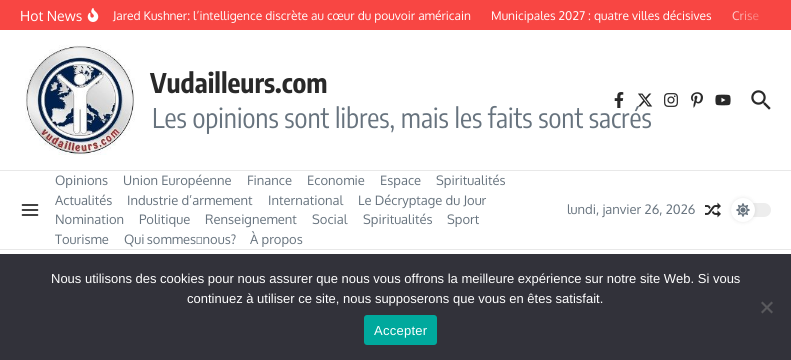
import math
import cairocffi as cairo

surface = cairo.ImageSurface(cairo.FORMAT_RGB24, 791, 360)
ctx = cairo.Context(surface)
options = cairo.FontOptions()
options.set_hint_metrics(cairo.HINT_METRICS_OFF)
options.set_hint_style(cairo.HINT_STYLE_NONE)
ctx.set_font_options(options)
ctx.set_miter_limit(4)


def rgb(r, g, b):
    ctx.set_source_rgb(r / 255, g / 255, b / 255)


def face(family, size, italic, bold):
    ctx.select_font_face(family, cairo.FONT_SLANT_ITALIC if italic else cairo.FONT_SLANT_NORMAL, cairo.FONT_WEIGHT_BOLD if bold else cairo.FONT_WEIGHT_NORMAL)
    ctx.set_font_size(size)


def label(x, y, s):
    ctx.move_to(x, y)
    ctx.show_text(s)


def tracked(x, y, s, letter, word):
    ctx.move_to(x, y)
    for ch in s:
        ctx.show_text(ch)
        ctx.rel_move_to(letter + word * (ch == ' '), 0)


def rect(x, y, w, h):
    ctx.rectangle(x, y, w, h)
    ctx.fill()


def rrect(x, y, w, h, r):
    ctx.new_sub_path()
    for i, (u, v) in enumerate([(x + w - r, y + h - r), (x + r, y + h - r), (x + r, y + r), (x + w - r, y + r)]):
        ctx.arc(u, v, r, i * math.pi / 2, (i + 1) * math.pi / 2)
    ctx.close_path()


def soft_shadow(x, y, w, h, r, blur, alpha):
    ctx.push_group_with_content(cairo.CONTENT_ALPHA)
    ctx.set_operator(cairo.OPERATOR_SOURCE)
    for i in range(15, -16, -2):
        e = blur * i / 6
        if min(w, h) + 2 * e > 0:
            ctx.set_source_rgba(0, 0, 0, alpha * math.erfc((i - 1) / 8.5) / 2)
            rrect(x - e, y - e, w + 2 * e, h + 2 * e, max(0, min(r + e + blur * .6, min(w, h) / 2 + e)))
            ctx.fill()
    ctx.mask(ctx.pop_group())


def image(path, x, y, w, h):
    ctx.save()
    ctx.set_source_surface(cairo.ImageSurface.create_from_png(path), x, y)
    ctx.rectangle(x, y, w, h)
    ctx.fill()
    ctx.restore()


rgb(255, 255, 255)
ctx.paint()
rgb(248, 70, 67)
rect(0, 0, 791, 30)
face('Oxygen', 14, 0, 0)
rgb(255, 255, 255)
label(20, 21, 'Hot News')
image('image0.png', 87, 8, 12, 14)
face('Oxygen', 12, 0, 0)
label(113, 20, 'Jared Kushner: l’intelligence discrète au cœur du pouvoir américain')
label(491, 20, 'Municipales 2027 : quatre villes décisives')
label(732, 20, 'Crise')
gradient = cairo.LinearGradient(721, 16, 771, 15)
gradient.add_color_stop_rgba(0, 0.973, 0.275, 0.263, 0)
gradient.add_color_stop_rgba(1, 0.973, 0.275, 0.263, 1)
ctx.set_source(gradient)
rect(732, 11, 27, 10)
rgb(232, 232, 232)
rect(0, 170, 791, 1)
image('image1.png', 25, 45, 110, 110)
face('Encode Sans Condensed', 27, 0, 1)
rgb(41, 41, 41)
label(150, 93, 'Vudailleurs.com')
face('Encode Sans Condensed', 27, 0, 0)
rgb(103, 115, 126)
label(152, 128, 'Les opinions sont libres, mais les faits sont sacrés')
image('image2.png', 614, 92, 10, 16)
image('image3.png', 638, 93, 15, 14)
image('image4.png', 664, 93, 14, 14)
image('image5.png', 691, 92, 12, 16)
image('image6.png', 715, 94, 16, 12)
image('image7.png', 751, 90, 20, 20)
rgb(232, 232, 232)
rect(0, 249, 791, 1)
image('image8.png', 21, 204, 18, 12)
face('Oxygen', 13, 0, 0)
rgb(103, 115, 126)
label(55, 185, 'Opinions')
label(123, 185, 'Union Européenne')
label(247, 185, 'Finance')
label(307, 185, 'Economie')
label(380, 185, 'Espace')
label(436, 185, 'Spiritualités')
label(55, 205, 'Actualités')
label(127, 205, 'Industrie d’armement')
label(268, 205, 'International')
label(358, 205, 'Le Décryptage du Jour')
label(55, 224, 'Nomination')
label(139, 224, 'Politique')
label(205, 224, 'Renseignement')
label(312, 224, 'Social')
label(363, 224, 'Spiritualités')
label(447, 224, 'Sport')
label(55, 244, 'Tourisme')
tracked(124, 244, 'Qui sommes‑nous?', 0, -1)
label(250, 244, 'À propos')
label(567, 214, 'lundi, janvier 26, 2026')
image('image9.png', 705, 202, 16, 16)
rgb(237, 237, 237)
rrect(731, 203, 40, 14, 7)
ctx.fill()
rgb(0, 0, 0)
soft_shadow(731, 198, 24, 24, 12, 2, 0.1)
rgb(255, 255, 255)
ctx.arc(743, 210, 12, 0, 2 * math.pi)
ctx.fill()
image('image10.png', 736, 203, 14, 14)
rgb(50, 50, 58)
rect(0, 254, 791, 106)
face('Liberation Sans', 13, 0, 0)
rgb(255, 255, 255)
label(51, 283, 'Nous utilisons des cookies pour nous assurer que nous vous offrons la meilleure expérience sur notre site Web. Si vous')
label(187, 303, 'continuez à utiliser ce site, nous supposerons que vous en êtes satisfait.')
rgb(89, 89, 93)
ctx.new_path()
ctx.move_to(771.5, 301.5)
ctx.line_to(773, 303)
ctx.line_to(762.5, 313.5)
ctx.line_to(761, 312)
ctx.close_path()
ctx.fill()
ctx.new_path()
ctx.move_to(761, 303)
ctx.line_to(762.5, 301.5)
ctx.line_to(773, 312)
ctx.line_to(771.5, 313.5)
ctx.close_path()
ctx.fill()
rgb(0, 169, 157)
rrect(364, 315, 73, 30, 3)
ctx.fill()
rgb(255, 255, 255)
tracked(374, 335, 'Accepter', 0.25, 0)
surface.write_to_png('render.png')
